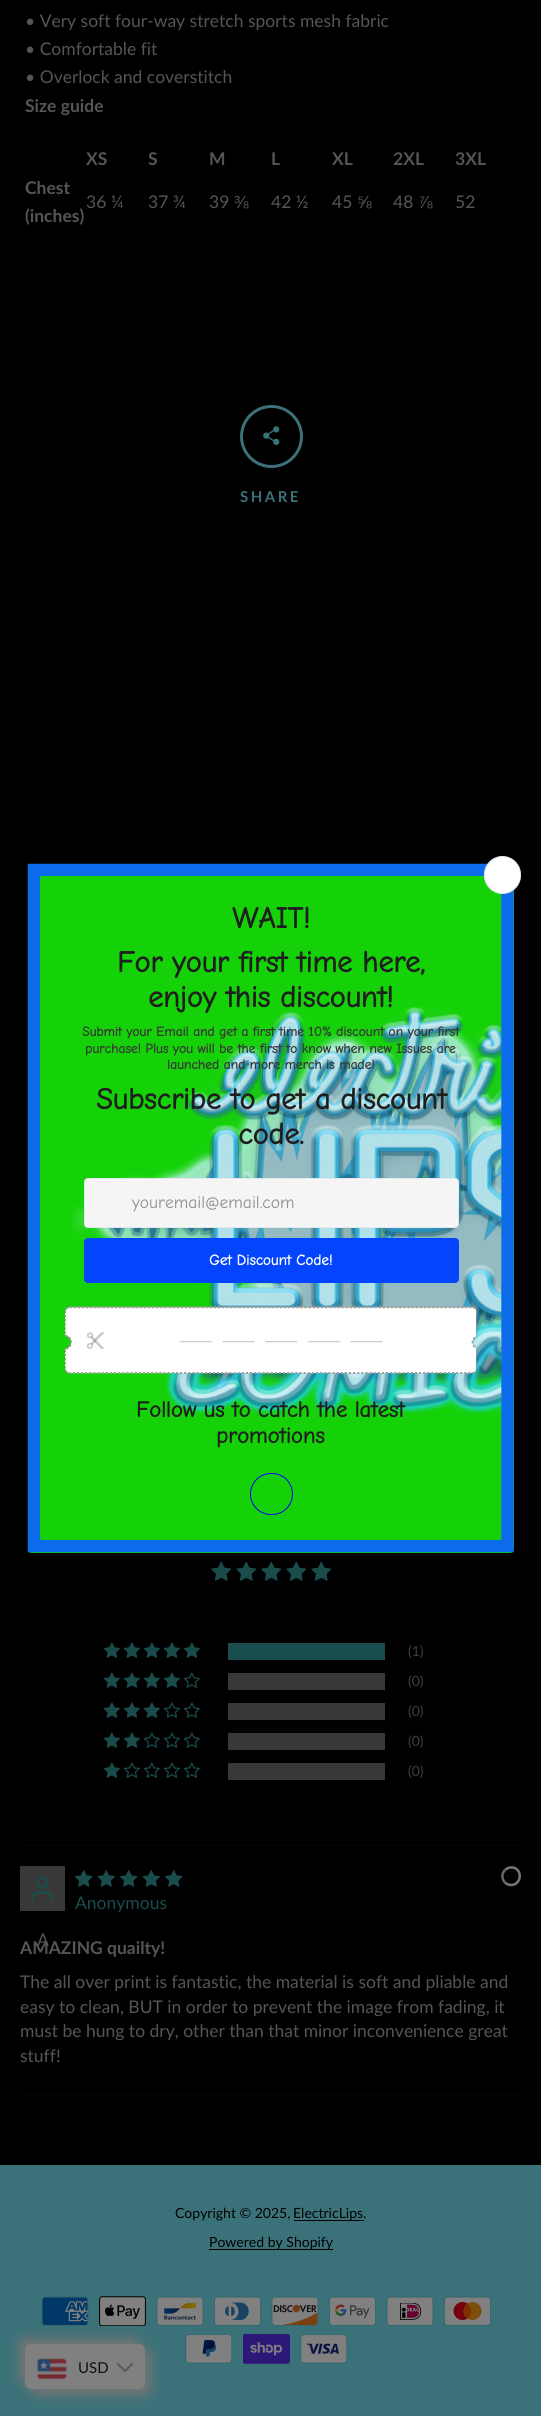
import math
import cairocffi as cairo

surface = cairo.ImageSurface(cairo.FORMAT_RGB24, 541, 2416)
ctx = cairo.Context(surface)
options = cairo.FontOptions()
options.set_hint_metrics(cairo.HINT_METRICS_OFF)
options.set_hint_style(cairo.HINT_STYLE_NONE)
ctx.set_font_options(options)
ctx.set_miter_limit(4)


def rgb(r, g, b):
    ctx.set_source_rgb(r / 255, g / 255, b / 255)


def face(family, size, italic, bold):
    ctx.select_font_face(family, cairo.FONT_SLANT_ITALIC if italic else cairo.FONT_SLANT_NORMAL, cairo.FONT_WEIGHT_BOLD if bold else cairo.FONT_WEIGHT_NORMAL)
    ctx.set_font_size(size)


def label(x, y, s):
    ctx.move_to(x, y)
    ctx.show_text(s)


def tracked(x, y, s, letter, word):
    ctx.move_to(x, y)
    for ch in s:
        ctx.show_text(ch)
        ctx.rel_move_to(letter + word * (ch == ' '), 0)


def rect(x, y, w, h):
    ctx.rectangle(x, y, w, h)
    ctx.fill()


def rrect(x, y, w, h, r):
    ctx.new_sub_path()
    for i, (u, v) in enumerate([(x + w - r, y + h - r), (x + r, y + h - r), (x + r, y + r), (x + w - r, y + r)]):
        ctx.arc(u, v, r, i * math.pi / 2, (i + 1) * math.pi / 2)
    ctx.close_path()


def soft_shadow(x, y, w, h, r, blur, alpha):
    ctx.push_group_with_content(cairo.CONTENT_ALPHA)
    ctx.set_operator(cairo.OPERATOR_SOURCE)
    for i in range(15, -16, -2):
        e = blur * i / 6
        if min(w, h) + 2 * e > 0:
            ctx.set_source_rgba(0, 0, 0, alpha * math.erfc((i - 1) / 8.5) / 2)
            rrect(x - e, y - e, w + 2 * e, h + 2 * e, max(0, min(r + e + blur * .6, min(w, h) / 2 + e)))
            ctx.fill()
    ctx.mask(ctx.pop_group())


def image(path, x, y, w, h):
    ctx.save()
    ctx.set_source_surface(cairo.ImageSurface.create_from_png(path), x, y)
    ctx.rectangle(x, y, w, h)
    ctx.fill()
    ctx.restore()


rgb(59, 114, 121)
ctx.paint()
rgb(0, 0, 0)
rect(0, 0, 541, 2165)
face('Lato', 17.5, 0, 0)
rgb(85, 85, 85)
label(25, 27, '• Very soft four-way stretch sports mesh fabric')
label(25, 55, '• Comfortable fit')
label(25, 83, '• Overlock and coverstitch')
face('Lato', 17.5, 0, 1)
label(25, 112, 'Size guide')
label(86, 165, 'XS')
label(148, 165, 'S')
label(209, 165, 'M')
label(271, 165, 'L')
label(332, 165, 'XL')
label(393, 165, '2XL')
label(455, 165, '3XL')
label(25, 194, 'Chest')
label(25, 222, '(inches)')
face('Lato', 17.5, 0, 0)
label(86, 208, '36 ¼')
label(148, 208, '37 ¾')
label(209, 208, '39')
face('Liberation Sans', 17.5, 0, 0)
label(234, 208, '⅜')
face('Lato', 17.5, 0, 0)
label(271, 208, '42 ½')
label(332, 208, '45')
face('Liberation Sans', 17.5, 0, 0)
label(357, 208, '⅝')
face('Lato', 17.5, 0, 0)
label(393, 208, '48')
face('Liberation Sans', 17.5, 0, 0)
label(418, 208, '⅞')
face('Lato', 17.5, 0, 0)
label(455, 208, '52')
ctx.new_path()
ctx.arc(271.5, 436.5, 30, 0, 2 * math.pi)
rgb(59, 114, 121)
ctx.set_line_width(3)
ctx.stroke()
image('image0.png', 263, 426, 17, 19)
face('Lato', 15, 0, 1)
tracked(240, 502, 'SHARE', 2.5, 0)
image('image1.png', 211, 1561, 21, 20)
image('image1.png', 236, 1561, 21, 20)
image('image1.png', 261, 1561, 21, 20)
image('image1.png', 286, 1561, 21, 20)
image('image1.png', 311, 1561, 21, 20)
image('image2.png', 103, 1642, 17, 16)
image('image2.png', 123, 1642, 17, 16)
image('image2.png', 143, 1642, 17, 16)
image('image2.png', 163, 1642, 17, 16)
image('image2.png', 183, 1642, 17, 16)
rgb(26, 77, 77)
rect(228, 1643, 157, 17)
face('Lato', 14, 0, 0)
rgb(62, 62, 62)
label(408, 1656, '(1)')
image('image2.png', 103, 1672, 17, 16)
image('image2.png', 123, 1672, 17, 16)
image('image2.png', 143, 1672, 17, 16)
image('image2.png', 163, 1672, 17, 16)
image('image3.png', 183, 1672, 17, 16)
rgb(56, 56, 56)
rect(228, 1673, 157, 17)
rgb(62, 62, 62)
label(408, 1686, '(0)')
image('image2.png', 103, 1702, 17, 16)
image('image2.png', 123, 1702, 17, 16)
image('image2.png', 143, 1702, 17, 16)
image('image3.png', 163, 1702, 17, 16)
image('image3.png', 183, 1702, 17, 16)
rgb(56, 56, 56)
rect(228, 1703, 157, 17)
rgb(62, 62, 62)
label(408, 1716, '(0)')
image('image2.png', 103, 1732, 17, 16)
image('image2.png', 123, 1732, 17, 16)
image('image3.png', 143, 1732, 17, 16)
image('image3.png', 163, 1732, 17, 16)
image('image3.png', 183, 1732, 17, 16)
rgb(56, 56, 56)
rect(228, 1733, 157, 17)
rgb(62, 62, 62)
label(408, 1746, '(0)')
image('image2.png', 103, 1762, 17, 16)
image('image3.png', 123, 1762, 17, 16)
image('image3.png', 143, 1762, 17, 16)
image('image3.png', 163, 1762, 17, 16)
image('image3.png', 183, 1762, 17, 16)
rgb(56, 56, 56)
rect(228, 1763, 157, 17)
rgb(62, 62, 62)
label(408, 1776, '(0)')
rgb(3, 8, 8)
rect(20, 1845, 501, 1)
image('image4.png', 75, 1870, 18, 17)
image('image5.png', 97, 1870, 18, 17)
image('image4.png', 120, 1870, 18, 17)
image('image5.png', 142, 1870, 18, 17)
image('image4.png', 165, 1870, 18, 17)
ctx.new_path()
ctx.move_to(505, 1870)
ctx.curve_to(507, 1868, 510, 1867, 513, 1867.5)
ctx.curve_to(523, 1869.5, 521.5, 1885, 511, 1885)
ctx.curve_to(509, 1885, 506.5, 1884, 505, 1882.5)
rgb(119, 119, 119)
ctx.set_line_width(2.5)
ctx.stroke()
ctx.new_path()
ctx.move_to(505, 1882.5)
ctx.curve_to(501.5, 1879, 501.5, 1873.5, 505, 1870)
rgb(102, 102, 102)
ctx.stroke()
face('Lato', 17.5, 0, 0)
rgb(26, 77, 77)
label(75, 1909, 'Anonymous')
rgb(56, 56, 56)
rect(20, 1866, 45, 45)
image('image6.png', 31, 1876, 23, 26)
rgb(85, 85, 85)
label(37, 1946, 'A')
face('Lato', 17.5, 0, 1)
label(20, 1954, 'AMAZING quailty!')
face('Lato', 17.5, 0, 0)
label(20, 1988, 'The all over print is fantastic, the material is soft and pliable and')
label(20, 2013, 'easy to clean, BUT in order to prevent the image from fading, it')
label(20, 2037, 'must be hung to dry, other than that minor inconvenience great')
label(20, 2062, 'stuff!')
rgb(3, 8, 8)
rect(20, 2094, 501, 1)
face('Lato', 14, 0, 0)
rgb(0, 0, 0)
label(175, 2218, 'Copyright © 2025,')
rect(294, 2220, 70, 1)
label(293, 2218, 'ElectricLips.')
rect(209, 2249, 124, 1)
label(209, 2247, 'Powered by Shopify')
image('image7.png', 41, 2296, 48, 30)
image('image8.png', 99, 2296, 47, 30)
image('image9.png', 156, 2296, 48, 30)
image('image10.png', 214, 2296, 47, 30)
image('image11.png', 271, 2296, 48, 30)
image('image12.png', 329, 2296, 47, 30)
image('image13.png', 386, 2296, 48, 30)
image('image14.png', 444, 2296, 47, 30)
image('image15.png', 185, 2334, 48, 30)
image('image16.png', 243, 2334, 47, 30)
image('image17.png', 300, 2334, 48, 30)
rgb(21, 210, 8)
rrect(28, 864, 486, 689, 4)
ctx.fill()
ctx.new_path()
ctx.move_to(34, 870)
ctx.line_to(507.5, 870)
ctx.line_to(507.5, 1546)
ctx.line_to(34, 1546)
ctx.close_path()
rgb(13, 108, 235)
ctx.set_line_width(12.5)
ctx.stroke()
rgb(21, 210, 8)
rrect(40, 876, 461, 664, 4)
ctx.fill()
rgb(255, 255, 255)
rrect(484.5, 856.5, 36, 37, 18)
ctx.fill_preserve()
rgb(226, 232, 240)
ctx.set_line_width(1)
ctx.stroke()
image('image18.png', 71, 1007, 431, 407)
face('Comic Neue', 30, 0, 1)
rgb(31, 31, 31)
label(232, 928, 'WAIT!')
label(117, 972, 'For your first time here,')
label(148, 1007, 'enjoy this discount!')
face('Comic Neue', 13.5, 0, 1)
rgb(54, 54, 54)
label(82, 1036, 'Submit your Email and get a first time 10% discount on your first')
label(85, 1053, 'purchase! Plus you will be the first to know when new Issues are')
label(167, 1069, 'launched and more merch is made!')
face('Comic Neue', 30, 0, 1)
rgb(31, 31, 31)
label(96, 1109, 'Subscribe to get a discount')
label(238, 1144, 'code.')
rgb(245, 245, 245)
rrect(84.5, 1178.5, 374, 49, 3.5)
ctx.fill_preserve()
rgb(226, 232, 240)
ctx.stroke()
face('Comic Neue', 17.5, 0, 0)
rgb(142, 142, 142)
label(132, 1208, 'youremail@email.com')
rgb(3, 69, 252)
rrect(84, 1238, 375, 45, 4)
ctx.fill()
face('Comic Neue', 15, 0, 1)
rgb(255, 255, 255)
label(209, 1265, 'Get Discount Code!')
image('image19.png', 65, 1306, 412, 68)
face('Comic Neue', 22.5, 0, 1)
rgb(31, 31, 31)
label(136, 1417, 'Follow us to catch the latest')
label(216, 1443, 'promotions')
rrect(250.5, 1473.5, 42, 41, 20.5)
rgb(0, 0, 238)
ctx.stroke()
rgb(116, 116, 116)
soft_shadow(19, 2338, 120, 45, 6, 6, 1)
soft_shadow(31, 2350, 120, 45, 6, 6, 1)
rgb(128, 128, 128)
rrect(25, 2344, 120, 45, 6)
ctx.fill()
image('image20.png', 37, 2358, 30, 21)
face('Lato', 15, 0, 0)
rgb(15, 15, 15)
label(78, 2373, 'USD')
ctx.new_path()
ctx.move_to(118, 2364)
ctx.line_to(125, 2371)
ctx.line_to(132, 2364)
rgb(92, 92, 92)
ctx.set_line_width(2.3)
ctx.set_line_cap(cairo.LINE_CAP_ROUND)
ctx.set_line_join(cairo.LINE_JOIN_ROUND)
ctx.stroke()
surface.write_to_png('render.png')
